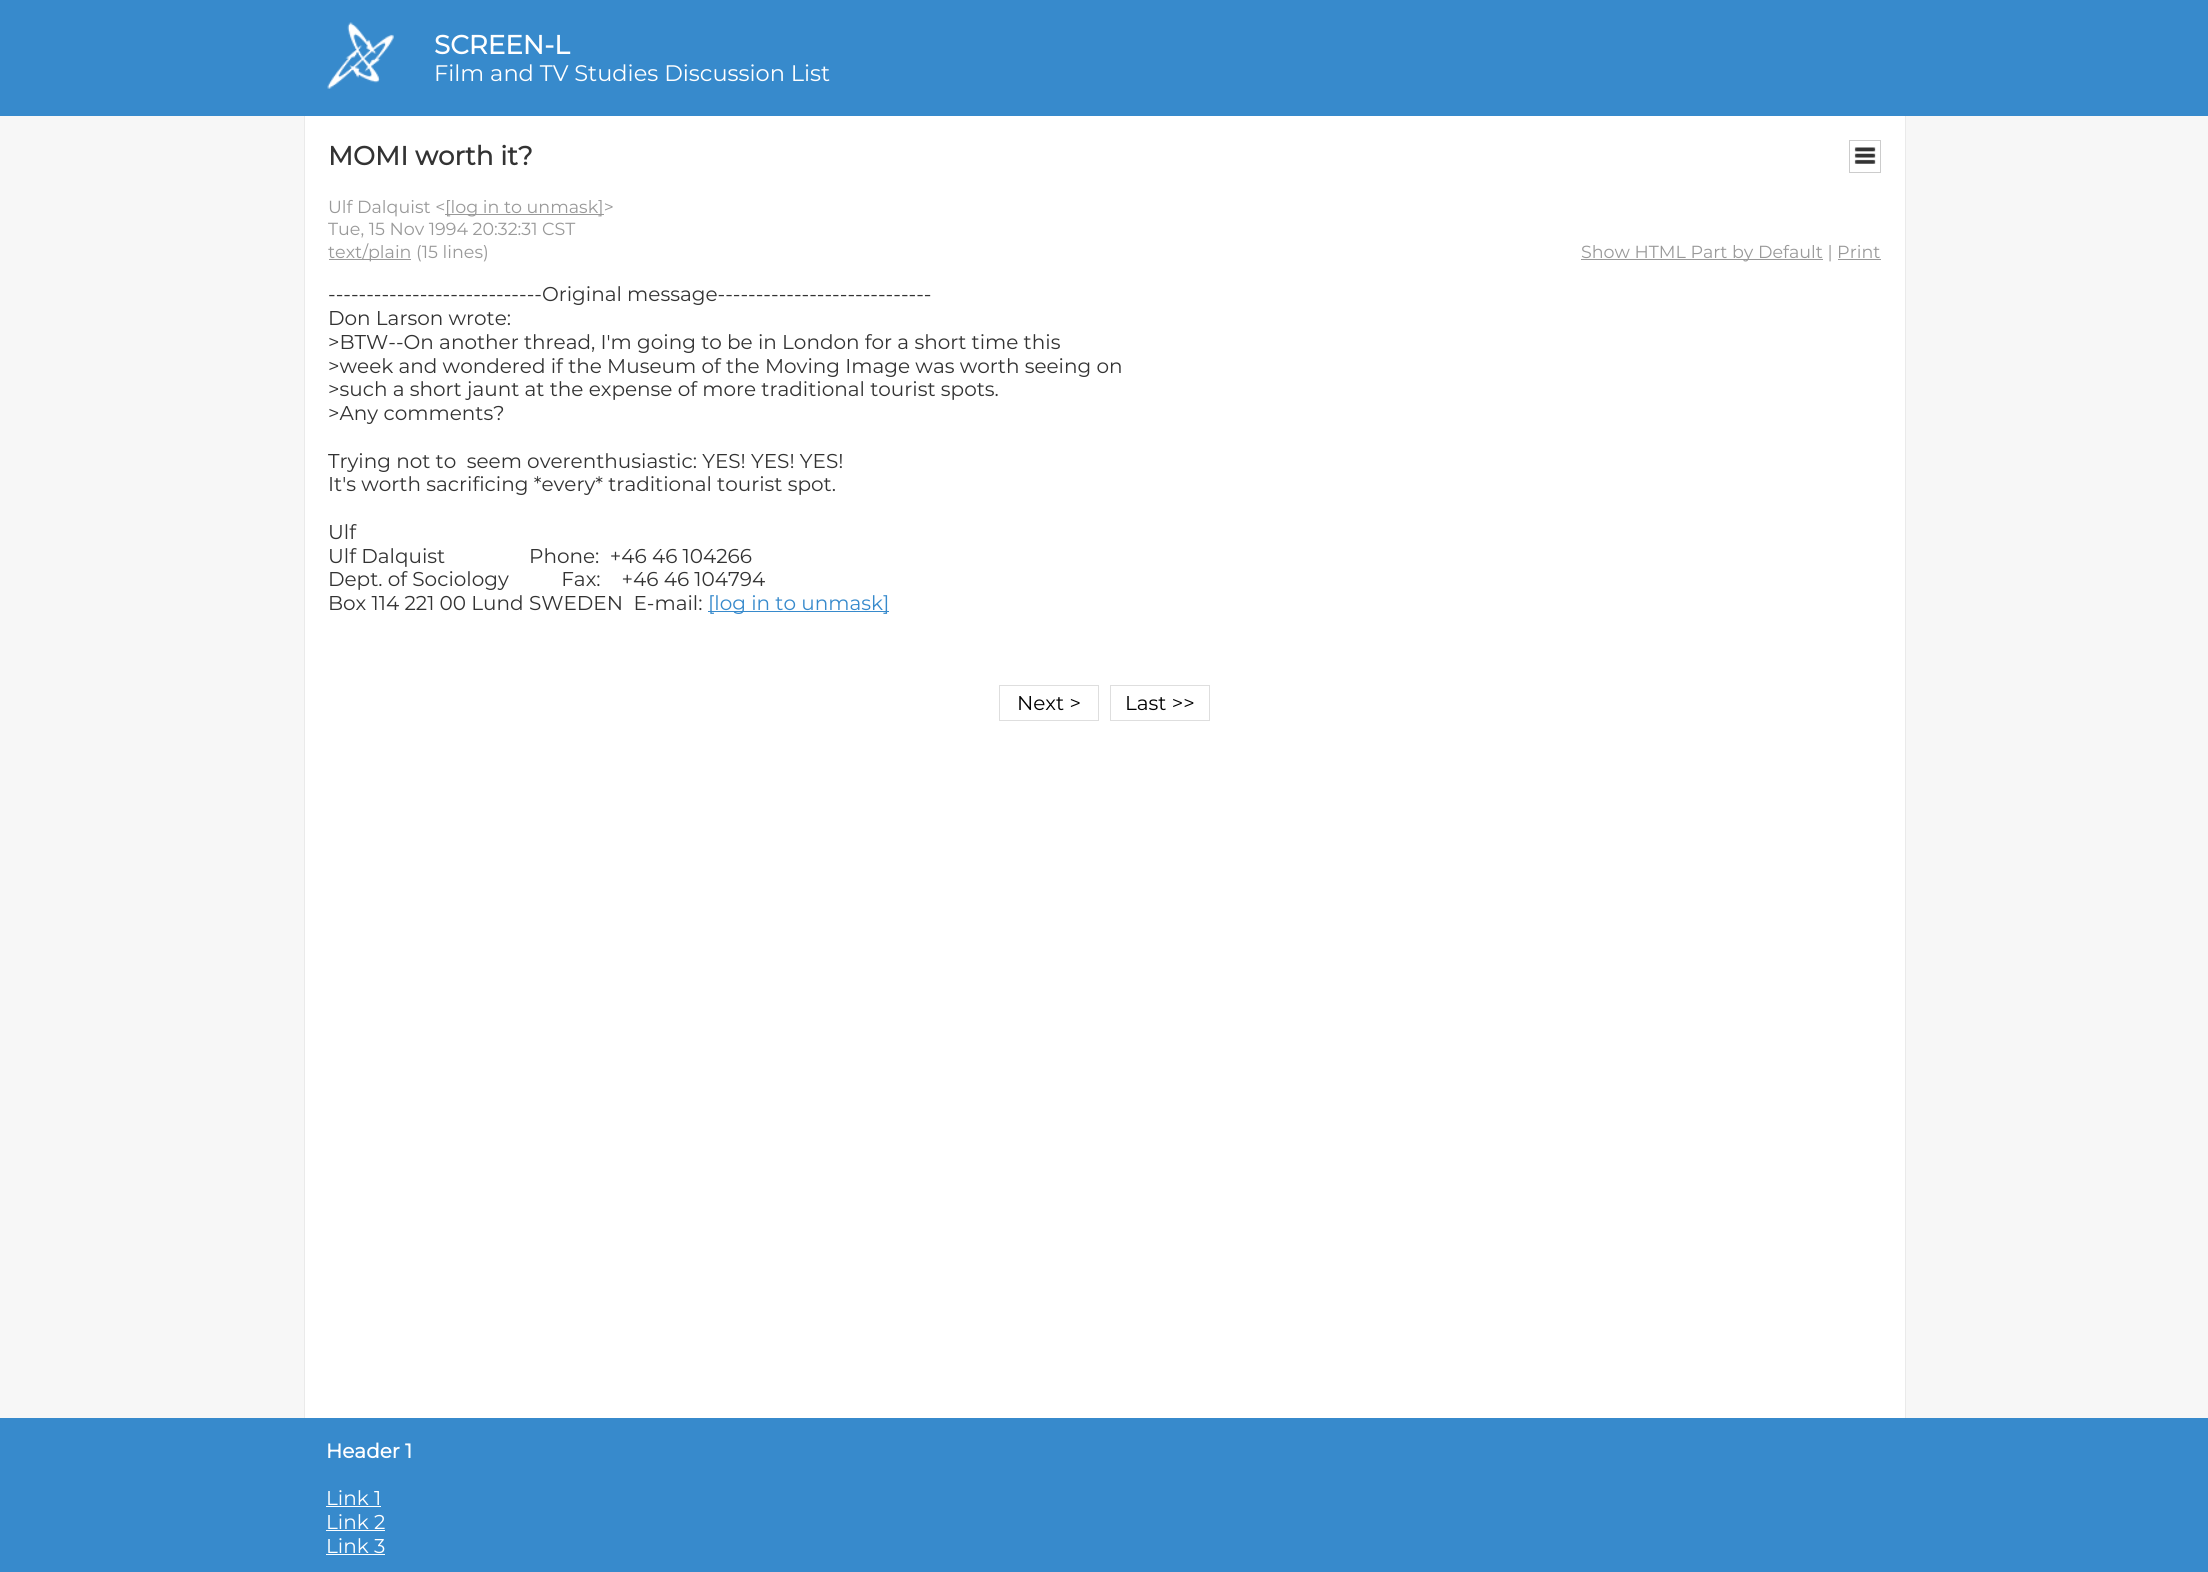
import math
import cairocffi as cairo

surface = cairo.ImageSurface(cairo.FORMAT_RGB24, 2208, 1572)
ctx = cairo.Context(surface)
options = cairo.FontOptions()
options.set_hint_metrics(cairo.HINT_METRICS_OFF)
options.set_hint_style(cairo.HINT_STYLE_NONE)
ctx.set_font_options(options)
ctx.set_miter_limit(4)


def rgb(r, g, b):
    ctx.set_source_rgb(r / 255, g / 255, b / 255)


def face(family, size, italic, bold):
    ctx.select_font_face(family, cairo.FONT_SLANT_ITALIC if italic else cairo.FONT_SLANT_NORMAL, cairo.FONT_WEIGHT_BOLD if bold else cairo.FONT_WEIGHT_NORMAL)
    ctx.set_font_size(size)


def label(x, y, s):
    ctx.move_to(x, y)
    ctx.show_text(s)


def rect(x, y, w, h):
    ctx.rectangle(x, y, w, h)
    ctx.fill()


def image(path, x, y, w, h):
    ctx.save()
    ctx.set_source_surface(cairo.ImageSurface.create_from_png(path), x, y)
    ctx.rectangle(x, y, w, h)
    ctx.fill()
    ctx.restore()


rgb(247, 247, 247)
ctx.paint()
rgb(55, 138, 204)
rect(0, 0, 2208, 116)
image('image0.png', 327, 22, 67, 67)
face('Montserrat', 26.25, 0, 1)
rgb(255, 255, 255)
label(434, 54, 'SCREEN-L')
face('Montserrat Thin', 22.5, 0, 0)
label(434, 81, 'Film and TV Studies Discussion List')
rect(305, 116, 1600, 1302)
rgb(234, 234, 234)
rect(1905, 116, 1, 1302)
rect(304, 116, 1, 1302)
ctx.rectangle(1849.5, 140.5, 31, 32)
rgb(204, 204, 204)
ctx.set_line_width(1)
ctx.stroke()
image('image1.png', 1854, 147, 22, 17)
face('Montserrat', 26.25, 0, 1)
rgb(51, 51, 51)
label(328, 165, 'MOMI worth it?')
face('Montserrat Thin', 17.5, 0, 0)
rgb(153, 153, 153)
label(328, 213, 'Ulf Dalquist <')
rect(445, 214, 159, 1)
label(445, 213, '[log in to unmask]>')
label(328, 235, 'Tue, 15 Nov 1994 20:32:31 CST')
rect(329, 259, 82, 1)
label(328, 258, 'text/plain (15 lines)')
rect(1581, 259, 242, 1)
label(1581, 258, 'Show HTML Part by Default | Print')
rect(1838, 259, 43, 1)
face('Montserrat Thin', 20, 0, 0)
rgb(51, 51, 51)
label(328, 301, '----------------------------Original message----------------------------')
label(328, 325, 'Don Larson wrote:')
label(328, 349, '>BTW--On another thread, I\'m going to be in London for a short time this')
label(328, 373, '>week and wondered if the Museum of the Moving Image was worth seeing on')
label(328, 396, '>such a short jaunt at the expense of more traditional tourist spots.')
label(328, 420, '>Any comments?')
label(328, 468, 'Trying not to  seem overenthusiastic: YES! YES! YES!')
label(328, 491, 'It\'s worth sacrificing *every* traditional tourist spot.')
label(328, 539, 'Ulf')
label(328, 563, 'Ulf Dalquist                Phone:  +46 46 104266')
label(328, 586, 'Dept. of Sociology          Fax:    +46 46 104794')
label(328, 610, 'Box 114 221 00 Lund SWEDEN  E-mail:')
rgb(55, 138, 204)
rect(708, 611, 181, 1)
label(708, 610, '[log in to unmask]')
ctx.rectangle(999.5, 685.5, 99, 35)
rgb(222, 222, 222)
ctx.stroke()
rgb(0, 0, 0)
label(1017, 710, 'Next >')
ctx.rectangle(1110.5, 685.5, 99, 35)
rgb(222, 222, 222)
ctx.stroke()
rgb(0, 0, 0)
label(1125, 710, 'Last >>')
rgb(55, 138, 204)
rect(0, 1418, 2208, 154)
face('Montserrat', 20, 0, 1)
rgb(255, 255, 255)
label(326, 1458, 'Header 1')
face('Montserrat Thin', 20, 0, 0)
label(326, 1505, 'Link 1')
rect(326, 1506, 55, 1)
label(326, 1529, 'Link 2')
rect(326, 1530, 59, 1)
label(326, 1553, 'Link 3')
rect(326, 1554, 59, 1)
surface.write_to_png('render.png')
